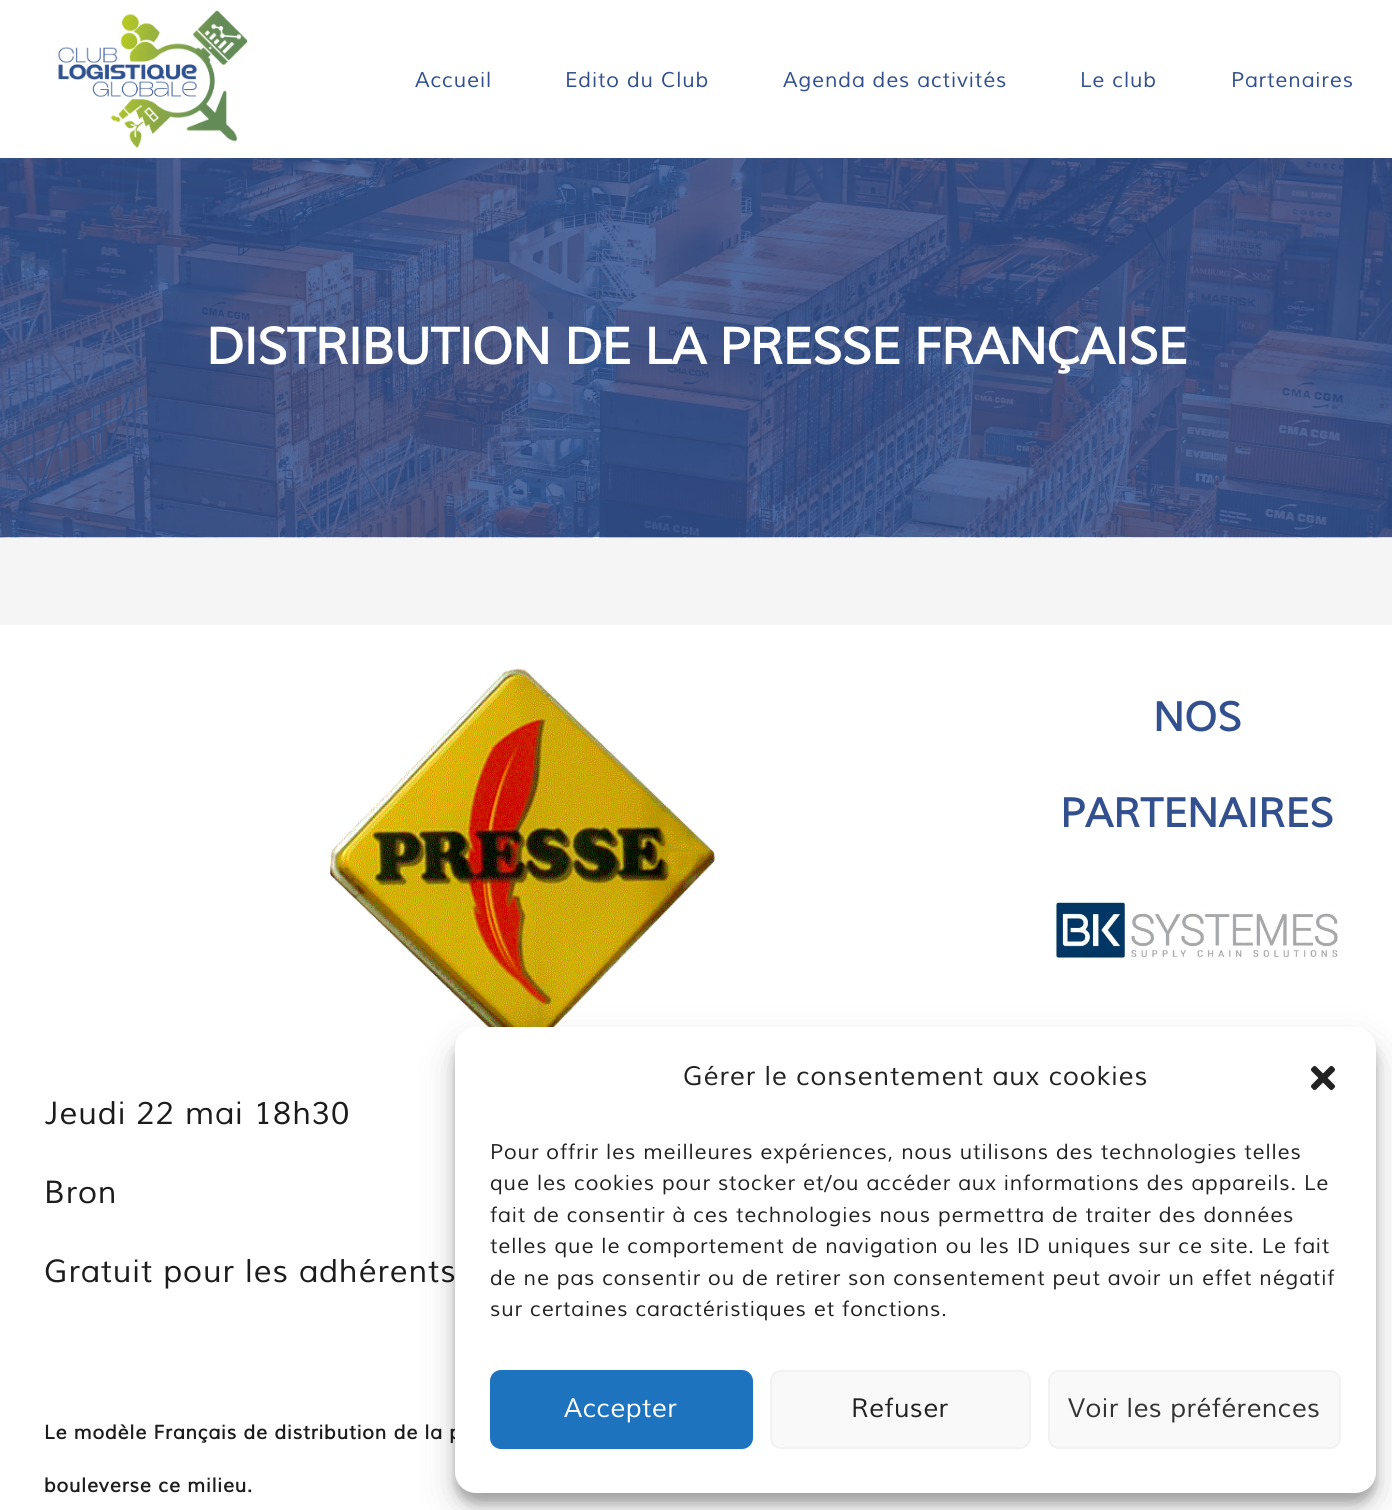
import math
import cairocffi as cairo

surface = cairo.ImageSurface(cairo.FORMAT_RGB24, 1392, 1510)
ctx = cairo.Context(surface)
options = cairo.FontOptions()
options.set_hint_metrics(cairo.HINT_METRICS_OFF)
options.set_hint_style(cairo.HINT_STYLE_NONE)
ctx.set_font_options(options)
ctx.set_miter_limit(4)


def rgb(r, g, b):
    ctx.set_source_rgb(r / 255, g / 255, b / 255)


def face(family, size, italic, bold):
    ctx.select_font_face(family, cairo.FONT_SLANT_ITALIC if italic else cairo.FONT_SLANT_NORMAL, cairo.FONT_WEIGHT_BOLD if bold else cairo.FONT_WEIGHT_NORMAL)
    ctx.set_font_size(size)


def label(x, y, s):
    ctx.move_to(x, y)
    ctx.show_text(s)


def tracked(x, y, s, letter, word):
    ctx.move_to(x, y)
    for ch in s:
        ctx.show_text(ch)
        ctx.rel_move_to(letter + word * (ch == ' '), 0)


def rect(x, y, w, h):
    ctx.rectangle(x, y, w, h)
    ctx.fill()


def rrect(x, y, w, h, r):
    ctx.new_sub_path()
    for i, (u, v) in enumerate([(x + w - r, y + h - r), (x + r, y + h - r), (x + r, y + r), (x + w - r, y + r)]):
        ctx.arc(u, v, r, i * math.pi / 2, (i + 1) * math.pi / 2)
    ctx.close_path()


def soft_shadow(x, y, w, h, r, blur, alpha):
    ctx.push_group_with_content(cairo.CONTENT_ALPHA)
    ctx.set_operator(cairo.OPERATOR_SOURCE)
    for i in range(15, -16, -2):
        e = blur * i / 6
        if min(w, h) + 2 * e > 0:
            ctx.set_source_rgba(0, 0, 0, alpha * math.erfc((i - 1) / 8.5) / 2)
            rrect(x - e, y - e, w + 2 * e, h + 2 * e, max(0, min(r + e + blur * .6, min(w, h) / 2 + e)))
            ctx.fill()
    ctx.mask(ctx.pop_group())


def image(path, x, y, w, h):
    ctx.save()
    ctx.set_source_surface(cairo.ImageSurface.create_from_png(path), x, y)
    ctx.rectangle(x, y, w, h)
    ctx.fill()
    ctx.restore()


rgb(255, 255, 255)
ctx.paint()
image('image0.png', 58, 10, 190, 138)
face('Muli', 21, 1, 0)
rgb(50, 80, 142)
tracked(415, 87, 'Accueil', 0.88, 0)
tracked(565, 87, 'Edito du Club', 0.88, 0)
tracked(783, 87, 'Agenda des activités', 0.88, 0)
tracked(1080, 87, 'Le club', 0.88, 0)
tracked(1231, 87, 'Partenaires', 0.88, 0)
image('image1.png', 0, 158, 1392, 380)
face('Muli', 50.4, 1, 1)
rgb(255, 255, 255)
tracked(206, 364, 'DISTRIBUTION DE LA PRESSE FRANÇAISE', -0.9, 0)
ctx.set_source_rgba(0.094, 0.09, 0.078, 0.04)
rect(0, 537, 1392, 88)
face('Muli', 40.25, 1, 1)
rgb(50, 80, 142)
label(1153, 731, 'NOS')
label(1060, 827, 'PARTENAIRES')
image('image2.png', 1054, 901, 284, 58)
image('image3.png', 330, 668, 385, 359)
face('Muli', 31.5, 1, 0)
rgb(29, 28, 28)
tracked(44, 1124, 'Jeudi 22 mai 18h30', 0.88, 0)
tracked(44, 1203, 'Bron', 0.88, 0)
tracked(44, 1282, 'Gratuit pour les adhérents', 0.88, 0)
face('Muli', 19.25, 1, 1)
tracked(44, 1439, 'Le modèle Français de distribution de la p', 0.88, 0)
tracked(44, 1492, 'bouleverse ce milieu.', 0.88, 0)
rgb(0, 0, 0)
soft_shadow(455, 1038, 921, 465, 21, 5, 0.23)
soft_shadow(455, 1045, 921, 465, 21, 17.5, 0.19)
rgb(255, 255, 255)
rrect(455, 1027, 921, 466, 21)
ctx.fill()
face('Muli', 26.25, 1, 0)
rgb(34, 34, 34)
tracked(683, 1085, 'Gérer le consentement aux cookies', 0.88, 0)
image('image4.png', 1311, 1066, 24, 24)
face('Muli', 21, 1, 0)
tracked(490, 1159, 'Pour offrir les meilleures expériences, nous utilisons des technologies telles', 0.88, 0)
tracked(490, 1190, 'que les cookies pour stocker et/ou accéder aux informations des appareils. Le', 0.88, 0)
tracked(490, 1222, 'fait de consentir à ces technologies nous permettra de traiter des données', 0.88, 0)
tracked(490, 1253, 'telles que le comportement de navigation ou les ID uniques sur ce site. Le fait', 0.88, 0)
tracked(490, 1285, 'de ne pas consentir ou de retirer son consentement peut avoir un effet négatif', 0.88, 0)
tracked(490, 1316, 'sur certaines caractéristiques et fonctions.', 0.88, 0)
rgb(30, 115, 190)
rrect(491, 1371, 261, 77, 10)
ctx.fill_preserve()
ctx.stroke()
face('Muli', 26.25, 1, 0)
rgb(255, 255, 255)
tracked(564, 1417, 'Accepter', 0.4, 0)
rgb(249, 249, 249)
rrect(771, 1371, 259, 77, 10)
ctx.fill_preserve()
rgb(242, 242, 242)
ctx.stroke()
rgb(34, 34, 34)
tracked(851, 1417, 'Refuser', 0.4, 0)
rgb(249, 249, 249)
rrect(1049, 1371, 291, 77, 10)
ctx.fill_preserve()
rgb(242, 242, 242)
ctx.stroke()
rgb(51, 51, 51)
tracked(1068, 1417, 'Voir les préférences', 0.4, 0)
surface.write_to_png('render.png')
